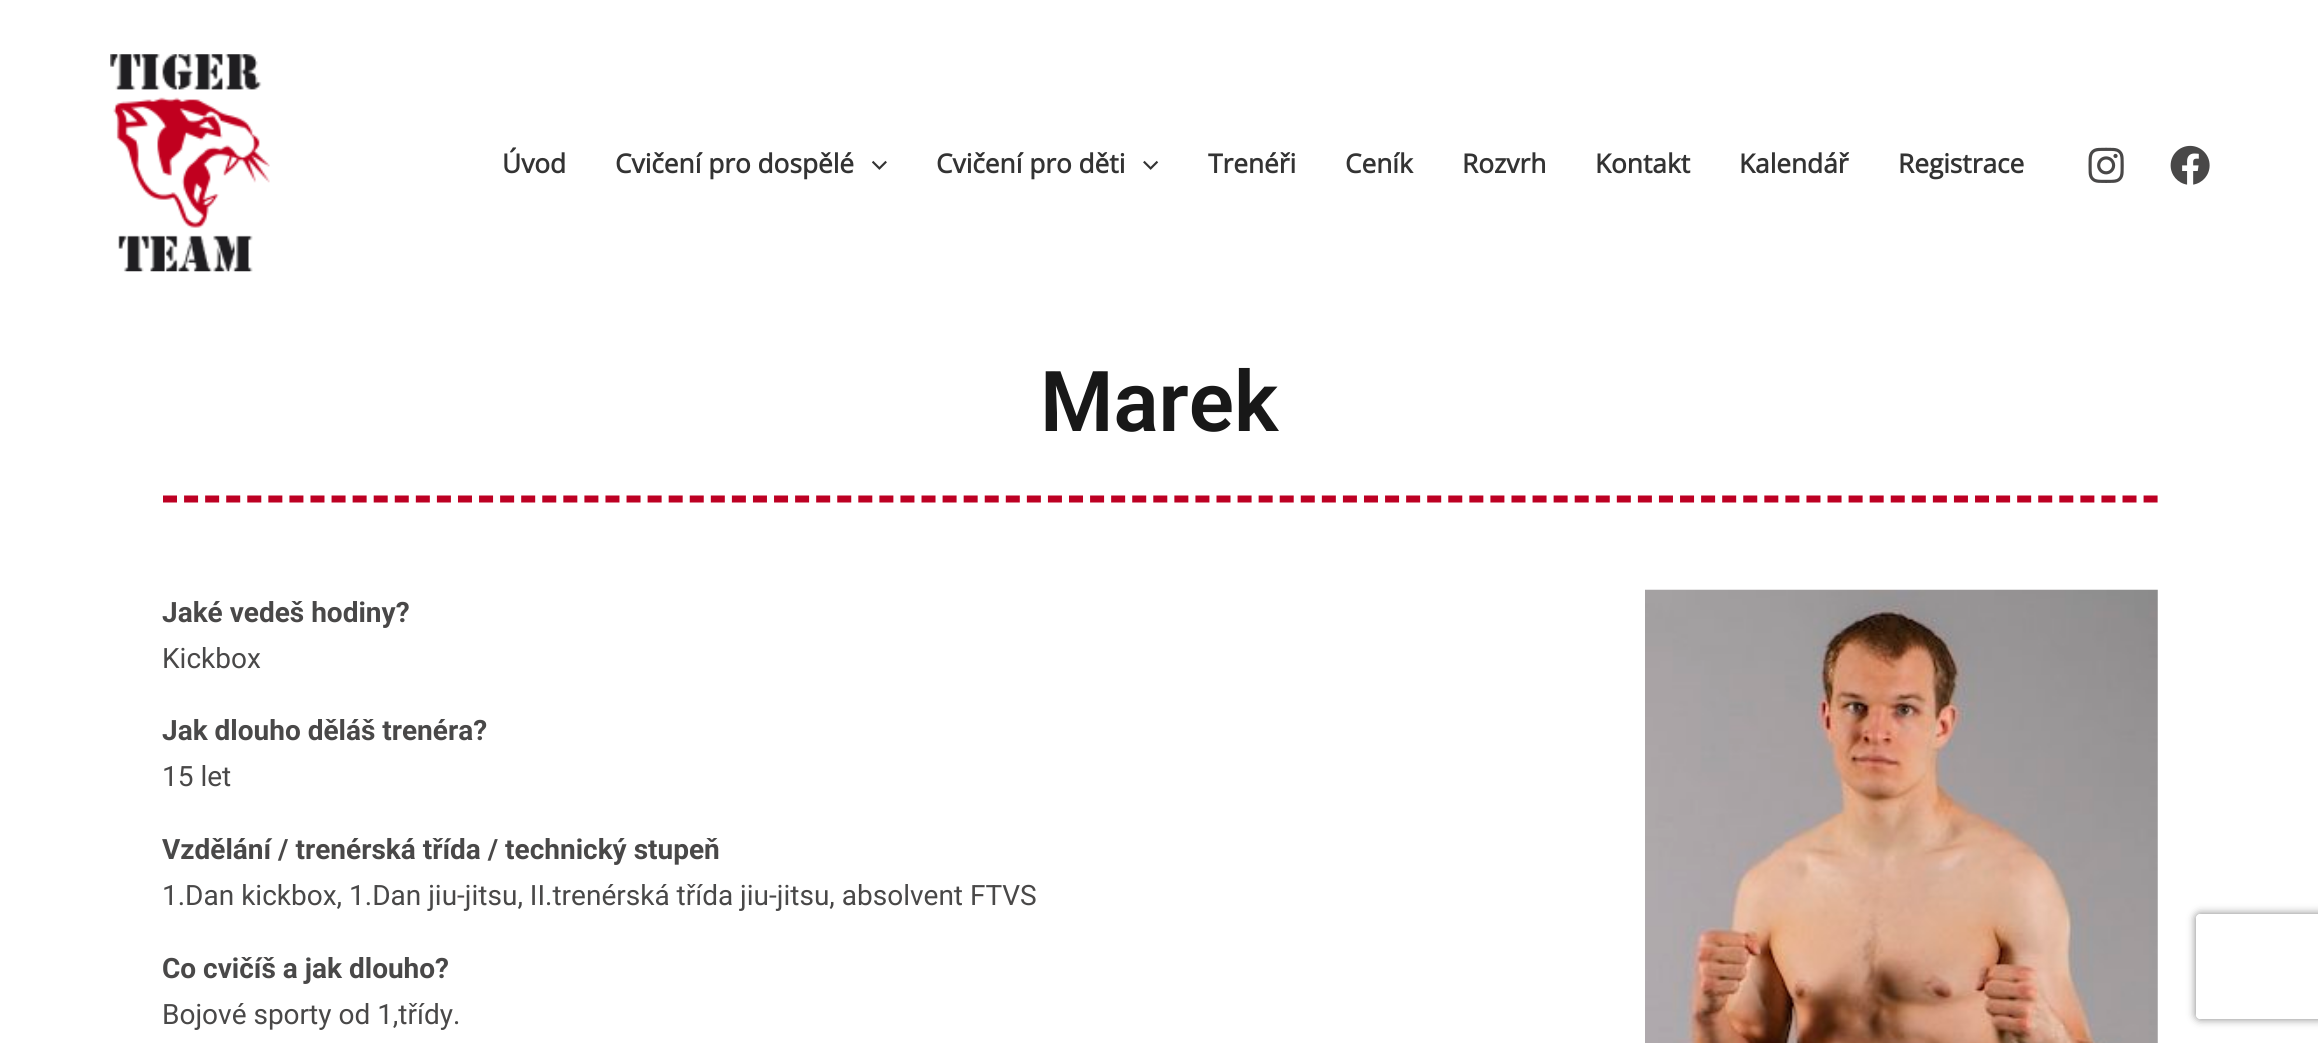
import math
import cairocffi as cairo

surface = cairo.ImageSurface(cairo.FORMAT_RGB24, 2318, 1043)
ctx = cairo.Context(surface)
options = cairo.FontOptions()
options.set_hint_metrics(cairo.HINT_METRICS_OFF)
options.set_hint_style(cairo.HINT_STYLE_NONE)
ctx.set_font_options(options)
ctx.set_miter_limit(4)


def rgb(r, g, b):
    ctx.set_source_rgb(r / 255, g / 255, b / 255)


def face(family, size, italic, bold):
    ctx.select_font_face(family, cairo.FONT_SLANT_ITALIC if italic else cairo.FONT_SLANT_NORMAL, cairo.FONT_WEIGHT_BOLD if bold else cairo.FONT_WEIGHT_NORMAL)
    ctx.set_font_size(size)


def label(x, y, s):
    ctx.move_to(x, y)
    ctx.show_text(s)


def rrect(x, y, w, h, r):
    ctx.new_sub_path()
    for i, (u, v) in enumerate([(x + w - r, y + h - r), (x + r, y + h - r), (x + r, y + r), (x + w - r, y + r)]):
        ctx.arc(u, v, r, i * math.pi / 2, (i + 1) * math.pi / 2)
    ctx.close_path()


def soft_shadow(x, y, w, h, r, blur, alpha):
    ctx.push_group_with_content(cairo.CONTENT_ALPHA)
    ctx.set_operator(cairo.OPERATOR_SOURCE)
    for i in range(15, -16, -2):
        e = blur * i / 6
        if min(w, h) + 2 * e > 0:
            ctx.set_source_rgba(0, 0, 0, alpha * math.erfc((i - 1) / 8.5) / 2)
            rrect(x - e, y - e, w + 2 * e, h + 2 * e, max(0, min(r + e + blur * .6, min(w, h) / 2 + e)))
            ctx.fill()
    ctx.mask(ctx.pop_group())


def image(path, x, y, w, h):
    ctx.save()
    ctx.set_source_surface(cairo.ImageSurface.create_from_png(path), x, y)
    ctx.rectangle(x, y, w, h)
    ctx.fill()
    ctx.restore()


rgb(255, 255, 255)
ctx.paint()
image('image0.png', 110, 54, 160, 218)
face('Open Sans', 26.25, 0, 1)
rgb(51, 51, 51)
label(502, 173, 'Úvod')
label(615, 173, 'Cvičení pro dospělé')
image('image1.png', 872, 160, 15, 10)
label(936, 173, 'Cvičení pro děti')
image('image2.png', 1143, 160, 16, 10)
label(1208, 173, 'Trenéři')
label(1345, 173, 'Ceník')
label(1462, 173, 'Rozvrh')
label(1595, 173, 'Kontakt')
label(1739, 173, 'Kalendář')
label(1898, 173, 'Registrace')
image('image3.png', 2088, 147, 36, 36)
image('image4.png', 2170, 145, 40, 40)
ctx.new_path()
ctx.move_to(163, 499)
ctx.line_to(2158, 499)
rgb(189, 0, 35)
ctx.set_line_width(7)
ctx.set_dash([14, 7.07])
ctx.stroke()
face('Roboto SemiBold', 84, 0, 0)
rgb(24, 24, 24)
label(1040, 431, 'Marek')
face('Roboto', 28, 0, 1)
rgb(73, 72, 72)
label(162, 622, 'Jaké vedeš hodiny?')
image('image5.png', 1645, 589, 513, 454)
face('Roboto', 28, 0, 0)
label(162, 668, 'Kickbox')
face('Roboto', 28, 0, 1)
label(162, 740, 'Jak dlouho děláš trenéra?')
face('Roboto', 28, 0, 0)
label(162, 786, '15 let')
face('Roboto', 28, 0, 1)
label(162, 859, 'Vzdělání / trenérská třída / technický stupeň')
face('Roboto', 28, 0, 0)
label(162, 905, '1.Dan kickbox, 1.Dan jiu-jitsu, II.trenérská třída jiu-jitsu, absolvent FTVS')
face('Roboto', 28, 0, 1)
label(162, 978, 'Co cvičíš a jak dlouho?')
face('Roboto', 28, 0, 0)
label(162, 1024, 'Bojové sporty od 1,třídy.')
ctx.save()
ctx.set_fill_rule(cairo.FILL_RULE_EVEN_ODD)
ctx.new_path()
ctx.move_to(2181, 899)
ctx.line_to(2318, 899)
ctx.line_to(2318, 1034)
ctx.line_to(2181, 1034)
ctx.close_path()
ctx.move_to(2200, 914)
ctx.line_to(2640, 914)
ctx.curve_to(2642, 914, 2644, 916, 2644, 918)
ctx.line_to(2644, 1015)
ctx.curve_to(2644, 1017, 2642, 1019, 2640, 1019)
ctx.line_to(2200, 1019)
ctx.curve_to(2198, 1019, 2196, 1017, 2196, 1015)
ctx.line_to(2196, 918)
ctx.curve_to(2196, 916, 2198, 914, 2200, 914)
ctx.close_path()
ctx.clip()
rgb(128, 128, 128)
soft_shadow(2196, 914, 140, 105, 4, 4.5, 1)
ctx.restore()
surface.write_to_png('render.png')
